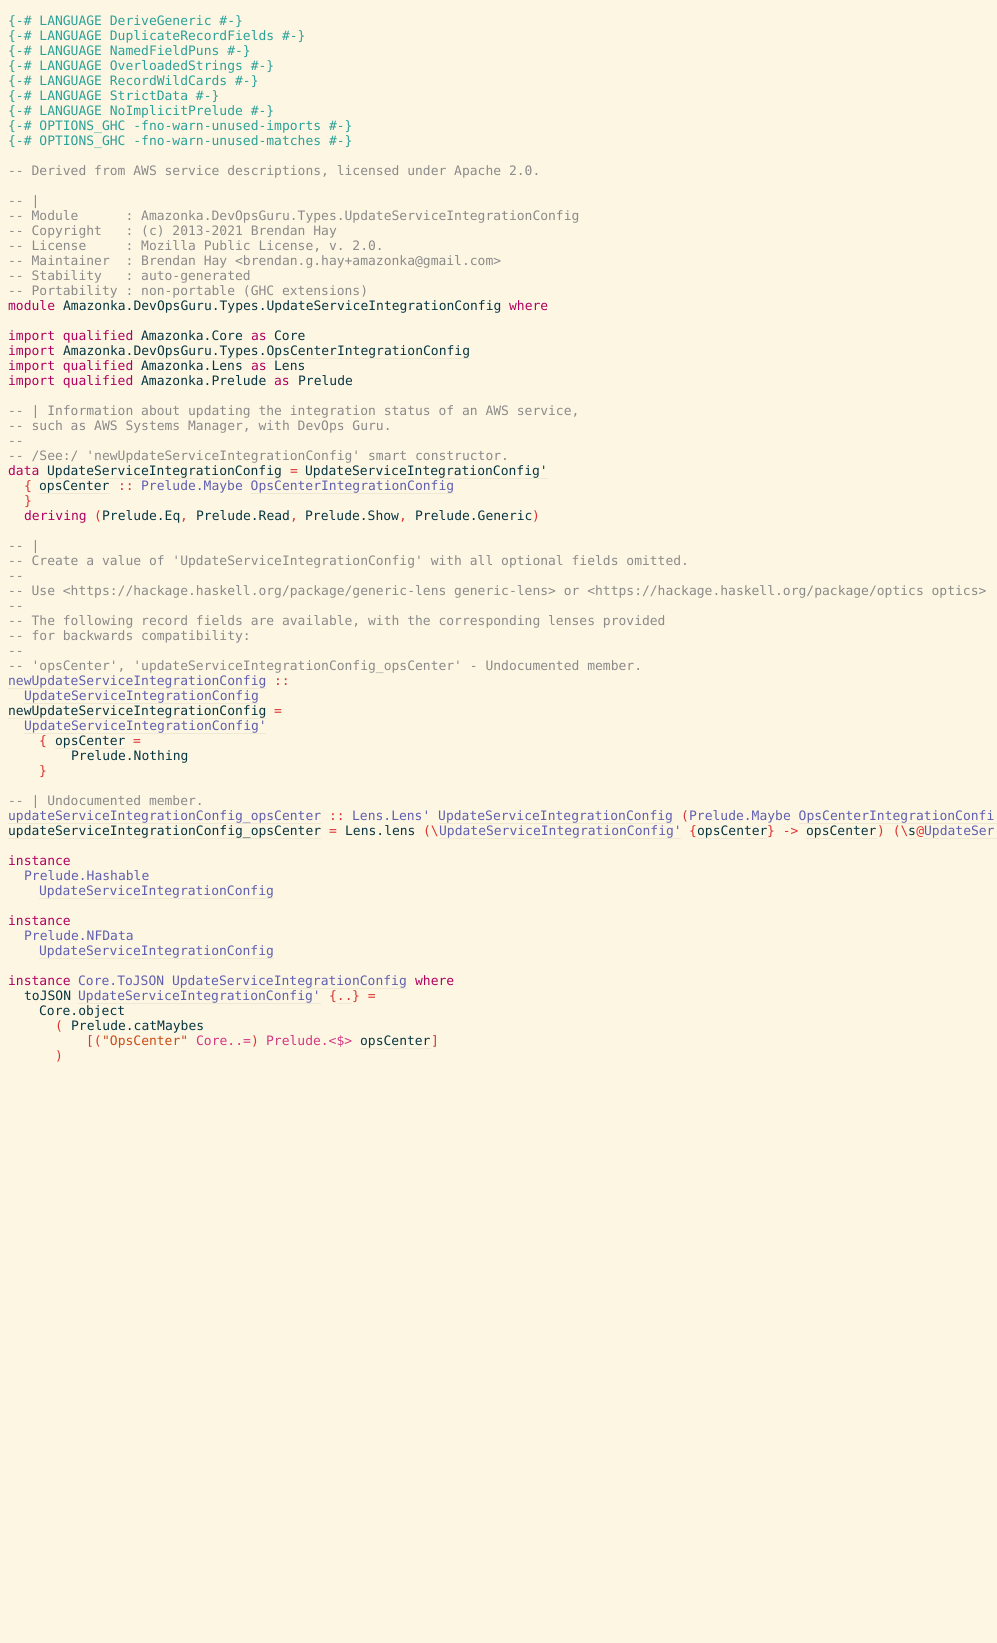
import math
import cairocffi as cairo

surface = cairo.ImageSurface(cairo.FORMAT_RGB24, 997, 1643)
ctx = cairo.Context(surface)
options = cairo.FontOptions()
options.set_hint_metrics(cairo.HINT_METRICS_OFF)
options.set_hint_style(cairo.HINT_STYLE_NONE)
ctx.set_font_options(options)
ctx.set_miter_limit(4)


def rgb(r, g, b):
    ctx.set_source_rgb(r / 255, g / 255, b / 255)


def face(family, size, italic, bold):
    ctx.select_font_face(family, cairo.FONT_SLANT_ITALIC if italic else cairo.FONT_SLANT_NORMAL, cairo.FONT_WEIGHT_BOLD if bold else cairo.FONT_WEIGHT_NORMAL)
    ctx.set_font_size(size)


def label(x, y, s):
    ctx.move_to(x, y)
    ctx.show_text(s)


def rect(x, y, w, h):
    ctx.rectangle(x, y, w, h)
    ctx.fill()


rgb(253, 246, 227)
ctx.paint()
face('DejaVu Sans Mono', 13, 0, 0)
rgb(42, 161, 152)
label(8, 25, '{-# LANGUAGE DeriveGeneric #-}')
label(8, 40, '{-# LANGUAGE DuplicateRecordFields #-}')
label(8, 55, '{-# LANGUAGE NamedFieldPuns #-}')
label(8, 70, '{-# LANGUAGE OverloadedStrings #-}')
label(8, 85, '{-# LANGUAGE RecordWildCards #-}')
label(8, 100, '{-# LANGUAGE StrictData #-}')
label(8, 115, '{-# LANGUAGE NoImplicitPrelude #-}')
label(8, 130, '{-# OPTIONS_GHC -fno-warn-unused-imports #-}')
label(8, 145, '{-# OPTIONS_GHC -fno-warn-unused-matches #-}')
rgb(138, 138, 138)
label(8, 175, '-- Derived from AWS service descriptions, licensed under Apache 2.0.')
label(8, 205, '-- |')
label(8, 220, '-- Module      : Amazonka.DevOpsGuru.Types.UpdateServiceIntegrationConfig')
label(8, 235, '-- Copyright   : (c) 2013-2021 Brendan Hay')
label(8, 250, '-- License     : Mozilla Public License, v. 2.0.')
label(8, 265, '-- Maintainer  : Brendan Hay <brendan.g.hay+amazonka@gmail.com>')
label(8, 280, '-- Stability   : auto-generated')
label(8, 295, '-- Portability : non-portable (GHC extensions)')
rgb(175, 0, 95)
label(8, 310, 'module')
rgb(7, 54, 66)
label(63, 310, 'Amazonka.DevOpsGuru.Types.UpdateServiceIntegrationConfig')
rgb(175, 0, 95)
label(509, 310, 'where')
label(8, 340, 'import qualified')
rgb(7, 54, 66)
label(141, 340, 'Amazonka.Core')
rgb(175, 0, 95)
label(251, 340, 'as')
rgb(7, 54, 66)
label(274, 340, 'Core')
rgb(175, 0, 95)
label(8, 355, 'import')
rgb(7, 54, 66)
label(63, 355, 'Amazonka.DevOpsGuru.Types.OpsCenterIntegrationConfig')
rgb(238, 232, 213)
rect(63, 358, 407, 1)
rgb(175, 0, 95)
label(8, 370, 'import qualified')
rgb(7, 54, 66)
label(141, 370, 'Amazonka.Lens')
rgb(175, 0, 95)
label(251, 370, 'as')
rgb(7, 54, 66)
label(274, 370, 'Lens')
rgb(175, 0, 95)
label(8, 385, 'import qualified')
rgb(7, 54, 66)
label(141, 385, 'Amazonka.Prelude')
rgb(175, 0, 95)
label(274, 385, 'as')
rgb(7, 54, 66)
label(298, 385, 'Prelude')
rgb(138, 138, 138)
label(8, 415, '-- | Information about updating the integration status of an AWS service,')
label(8, 430, '-- such as AWS Systems Manager, with DevOps Guru.')
label(8, 445, '--')
label(8, 460, '-- /See:/ \'newUpdateServiceIntegrationConfig\' smart constructor.')
rgb(175, 0, 95)
label(8, 475, 'data')
rgb(7, 54, 66)
label(47, 475, 'UpdateServiceIntegrationConfig')
rgb(238, 232, 213)
rect(47, 478, 235, 1)
rgb(220, 50, 47)
label(290, 475, '=')
rgb(7, 54, 66)
label(305, 475, 'UpdateServiceIntegrationConfig\'')
rgb(238, 232, 213)
rect(305, 478, 243, 1)
rgb(220, 50, 47)
label(24, 490, '{')
rgb(7, 54, 66)
label(39, 490, 'opsCenter')
rgb(238, 232, 213)
rect(39, 493, 71, 1)
rgb(220, 50, 47)
label(118, 490, '::')
rgb(95, 95, 175)
label(141, 490, 'Prelude.Maybe OpsCenterIntegrationConfig')
rgb(238, 232, 213)
rect(251, 493, 203, 1)
rgb(220, 50, 47)
label(24, 505, '}')
rgb(175, 0, 95)
label(24, 520, 'deriving')
rgb(220, 50, 47)
label(94, 520, '(')
rgb(7, 54, 66)
label(102, 520, 'Prelude.Eq')
rgb(220, 50, 47)
label(180, 520, ',')
rgb(7, 54, 66)
label(196, 520, 'Prelude.Read')
rgb(220, 50, 47)
label(290, 520, ',')
rgb(7, 54, 66)
label(305, 520, 'Prelude.Show')
rgb(220, 50, 47)
label(399, 520, ',')
rgb(7, 54, 66)
label(415, 520, 'Prelude.Generic')
rgb(220, 50, 47)
label(532, 520, ')')
rgb(138, 138, 138)
label(8, 550, '-- |')
label(8, 565, '-- Create a value of \'UpdateServiceIntegrationConfig\' with all optional fields omitted.')
label(8, 580, '--')
label(8, 595, '-- Use <https://hackage.haskell.org/package/generic-lens generic-lens> or <https://hackage.haskell.org/package/optics optics>')
label(8, 610, '--')
label(8, 625, '-- The following record fields are available, with the corresponding lenses provided')
label(8, 640, '-- for backwards compatibility:')
label(8, 655, '--')
label(8, 670, '-- \'opsCenter\', \'updateServiceIntegrationConfig_opsCenter\' - Undocumented member.')
rgb(95, 95, 175)
label(8, 685, 'newUpdateServiceIntegrationConfig')
rgb(238, 232, 213)
rect(8, 688, 258, 1)
rgb(220, 50, 47)
label(274, 685, '::')
rgb(95, 95, 175)
label(24, 700, 'UpdateServiceIntegrationConfig')
rgb(238, 232, 213)
rect(24, 703, 234, 1)
rgb(7, 54, 66)
label(8, 715, 'newUpdateServiceIntegrationConfig')
rgb(238, 232, 213)
rect(8, 718, 258, 1)
rgb(220, 50, 47)
label(274, 715, '=')
rgb(95, 95, 175)
label(24, 730, 'UpdateServiceIntegrationConfig\'')
rgb(238, 232, 213)
rect(24, 733, 242, 1)
rgb(220, 50, 47)
label(39, 745, '{')
rgb(7, 54, 66)
label(55, 745, 'opsCenter')
rgb(238, 232, 213)
rect(55, 748, 70, 1)
rgb(220, 50, 47)
label(133, 745, '=')
rgb(7, 54, 66)
label(71, 760, 'Prelude.Nothing')
rgb(220, 50, 47)
label(39, 775, '}')
rgb(138, 138, 138)
label(8, 805, '-- | Undocumented member.')
rgb(238, 232, 213)
rect(8, 823, 313, 1)
rgb(95, 95, 175)
label(8, 820, 'updateServiceIntegrationConfig_opsCenter')
rgb(220, 50, 47)
label(329, 820, '::')
rgb(95, 95, 175)
label(352, 820, 'Lens.Lens\' UpdateServiceIntegrationConfig')
rgb(220, 50, 47)
label(681, 820, '(')
rgb(95, 95, 175)
label(689, 820, 'Prelude.Maybe OpsCenterIntegrationConfi')
rgb(238, 232, 213)
rect(439, 823, 234, 1)
rect(799, 823, 198, 1)
rect(8, 838, 313, 1)
rgb(7, 54, 66)
label(8, 835, 'updateServiceIntegrationConfig_opsCenter')
label(345, 835, 'Lens.lens')
rgb(220, 50, 47)
label(423, 835, '(\\')
rgb(95, 95, 175)
label(439, 835, 'UpdateServiceIntegrationConfig\'')
rgb(238, 232, 213)
rect(439, 838, 242, 1)
rgb(220, 50, 47)
label(689, 835, '{')
rgb(7, 54, 66)
label(697, 835, 'opsCenter')
rgb(238, 232, 213)
rect(697, 838, 70, 1)
rgb(220, 50, 47)
label(767, 835, '} ->')
rgb(7, 54, 66)
label(806, 835, 'opsCenter')
rgb(238, 232, 213)
rect(806, 838, 71, 1)
rgb(220, 50, 47)
label(877, 835, ') (\\ @')
rgb(95, 95, 175)
label(924, 835, 'UpdateSer')
rgb(238, 232, 213)
rect(924, 838, 73, 1)
rgb(220, 50, 47)
label(329, 835, '=')
rgb(7, 54, 66)
label(908, 835, 's')
rgb(238, 232, 213)
rect(908, 838, 8, 1)
rgb(175, 0, 95)
label(8, 865, 'instance')
rgb(95, 95, 175)
label(24, 880, 'Prelude.Hashable')
label(39, 895, 'UpdateServiceIntegrationConfig')
rgb(238, 232, 213)
rect(39, 898, 235, 1)
rgb(175, 0, 95)
label(8, 925, 'instance')
rgb(95, 95, 175)
label(24, 940, 'Prelude.NFData')
label(39, 955, 'UpdateServiceIntegrationConfig')
rgb(238, 232, 213)
rect(39, 958, 235, 1)
rgb(175, 0, 95)
label(8, 985, 'instance')
rgb(95, 95, 175)
label(78, 985, 'Core.ToJSON UpdateServiceIntegrationConfig')
rgb(238, 232, 213)
rect(172, 988, 235, 1)
rgb(175, 0, 95)
label(415, 985, 'where')
rgb(7, 54, 66)
label(24, 1000, 'toJSON')
rgb(95, 95, 175)
label(78, 1000, 'UpdateServiceIntegrationConfig\'')
rgb(238, 232, 213)
rect(78, 1003, 243, 1)
rgb(220, 50, 47)
label(329, 1000, '{..')
label(352, 1000, '} =')
rgb(238, 232, 213)
rect(337, 1003, 15, 1)
rgb(7, 54, 66)
label(39, 1015, 'Core.object')
rgb(220, 50, 47)
label(55, 1030, '(')
rgb(7, 54, 66)
label(71, 1030, 'Prelude.catMaybes')
rgb(220, 50, 47)
label(86, 1045, '[(')
rgb(203, 75, 22)
label(102, 1045, '"OpsCenter"')
rgb(211, 54, 130)
label(196, 1045, 'Core..=')
rgb(220, 50, 47)
label(251, 1045, ')')
rgb(211, 54, 130)
label(266, 1045, 'Prelude.<$>')
rgb(7, 54, 66)
label(360, 1045, 'opsCenter')
rgb(238, 232, 213)
rect(360, 1048, 71, 1)
rgb(220, 50, 47)
label(431, 1045, ']')
label(55, 1060, ')')
surface.write_to_png('render.png')
